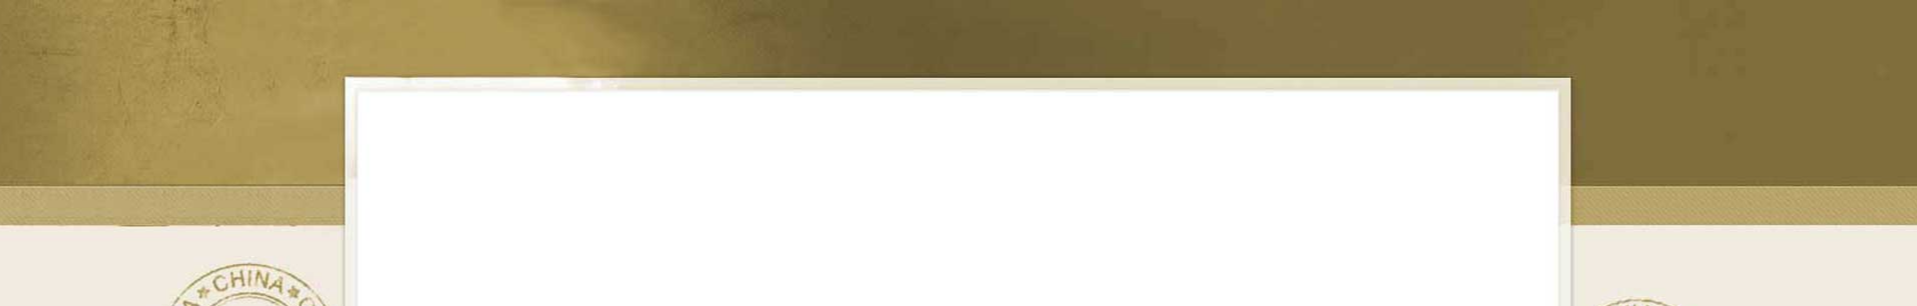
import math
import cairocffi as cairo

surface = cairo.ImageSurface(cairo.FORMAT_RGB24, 1917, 306)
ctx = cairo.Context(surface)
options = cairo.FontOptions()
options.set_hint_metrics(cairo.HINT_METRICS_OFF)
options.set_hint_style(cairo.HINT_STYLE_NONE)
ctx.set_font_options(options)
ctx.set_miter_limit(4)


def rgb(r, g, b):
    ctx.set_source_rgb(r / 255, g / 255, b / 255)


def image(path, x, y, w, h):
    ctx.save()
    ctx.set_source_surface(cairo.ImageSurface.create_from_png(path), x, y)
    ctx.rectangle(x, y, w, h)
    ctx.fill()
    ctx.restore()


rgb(255, 255, 255)
ctx.paint()
image('image0.png', 0, 0, 1917, 306)
surface.write_to_png('render.png')
